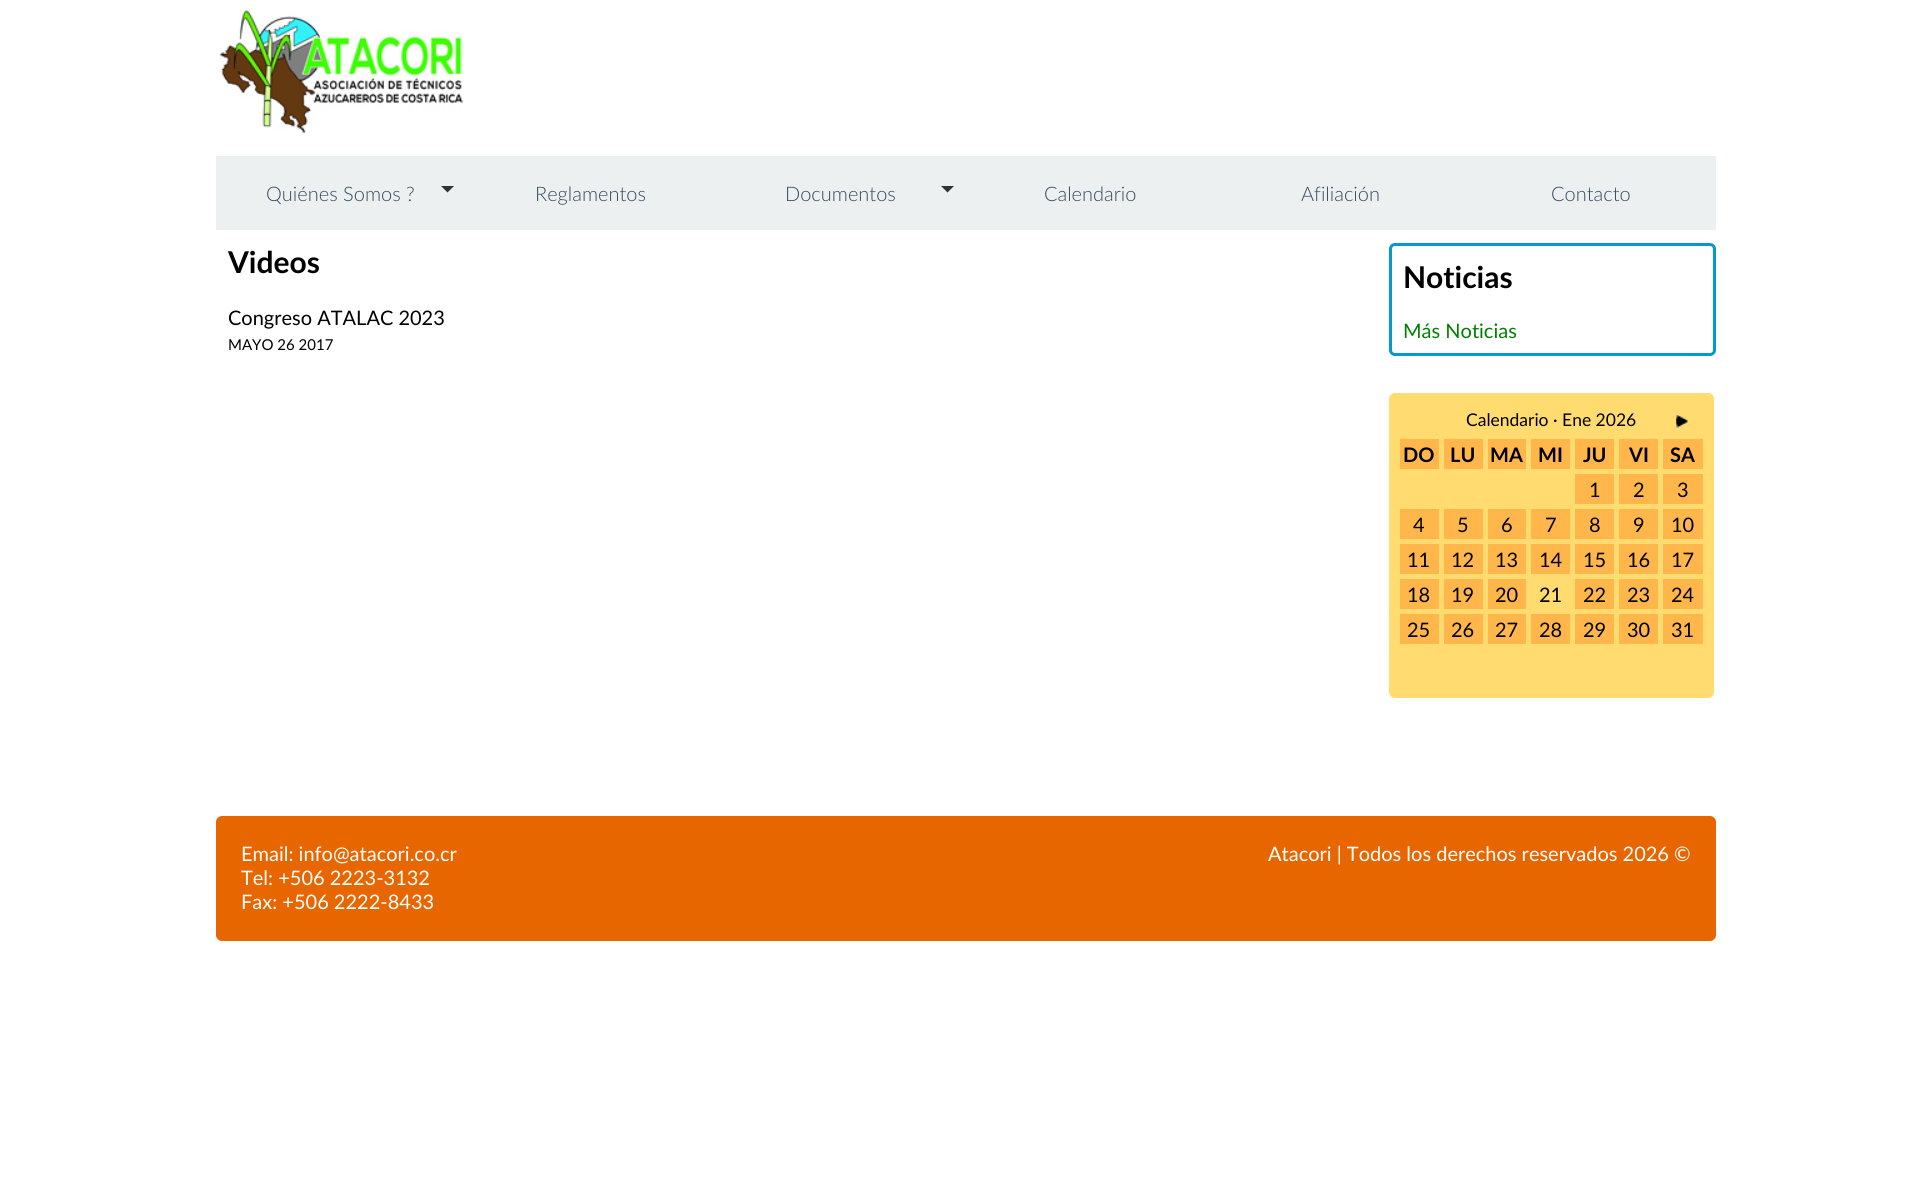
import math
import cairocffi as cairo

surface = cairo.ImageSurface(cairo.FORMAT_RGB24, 1931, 1191)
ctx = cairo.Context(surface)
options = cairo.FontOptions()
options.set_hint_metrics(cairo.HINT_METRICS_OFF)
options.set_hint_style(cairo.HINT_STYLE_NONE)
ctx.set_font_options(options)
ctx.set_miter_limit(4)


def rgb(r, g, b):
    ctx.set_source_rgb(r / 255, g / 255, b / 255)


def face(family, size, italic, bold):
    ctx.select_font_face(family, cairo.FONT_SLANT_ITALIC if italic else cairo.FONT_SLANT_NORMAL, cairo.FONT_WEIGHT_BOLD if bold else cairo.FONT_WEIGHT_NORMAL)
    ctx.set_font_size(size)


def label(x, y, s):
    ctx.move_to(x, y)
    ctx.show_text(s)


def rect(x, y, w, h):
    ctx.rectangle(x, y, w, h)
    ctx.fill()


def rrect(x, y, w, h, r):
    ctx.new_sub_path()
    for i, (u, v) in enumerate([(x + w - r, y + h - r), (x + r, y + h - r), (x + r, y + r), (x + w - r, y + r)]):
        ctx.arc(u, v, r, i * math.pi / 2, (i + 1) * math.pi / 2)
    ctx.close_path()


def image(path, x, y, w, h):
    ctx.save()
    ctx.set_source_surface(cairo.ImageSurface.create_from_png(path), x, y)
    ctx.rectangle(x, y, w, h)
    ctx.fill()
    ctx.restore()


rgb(255, 255, 255)
ctx.paint()
image('image0.png', 219, 10, 244, 123)
rgb(236, 240, 241)
rect(216, 156, 1500, 74)
face('Lato Light', 20, 0, 0)
rgb(52, 73, 94)
label(266, 201, 'Quiénes Somos ?')
rgb(51, 51, 51)
ctx.new_path()
ctx.move_to(441, 186)
ctx.line_to(454, 186)
ctx.line_to(447.5, 192.5)
ctx.close_path()
ctx.fill()
rgb(52, 73, 94)
label(535, 201, 'Reglamentos')
label(785, 201, 'Documentos')
rgb(51, 51, 51)
ctx.new_path()
ctx.move_to(941, 186)
ctx.line_to(954, 186)
ctx.line_to(947.5, 192.5)
ctx.close_path()
ctx.fill()
rgb(52, 73, 94)
label(1044, 201, 'Calendario')
label(1301, 201, 'Afiliación')
label(1551, 201, 'Contacto')
face('Lato', 30, 0, 1)
rgb(0, 0, 0)
label(228, 273, 'Videos')
face('Lato', 20, 0, 0)
label(228, 325, 'Congreso ATALAC 2023')
face('Lato', 15, 0, 0)
label(228, 350, 'MAYO 26 2017')
rrect(1390.5, 244.5, 324, 110, 4.5)
rgb(0, 154, 209)
ctx.set_line_width(3)
ctx.stroke()
face('Lato', 30, 0, 1)
rgb(0, 0, 0)
label(1403, 288, 'Noticias')
face('Lato', 20, 0, 0)
rgb(0, 128, 0)
label(1403, 338, 'Más Noticias')
rgb(255, 219, 112)
rrect(1389, 393, 325, 305, 6)
ctx.fill()
face('Lato', 17.5, 0, 0)
rgb(0, 0, 0)
label(1466, 426, 'Calendario · Ene 2026')
image('image1.png', 1676, 415, 12, 13)
rgb(255, 183, 76)
rect(1400, 439, 39, 30)
face('Lato', 20, 0, 1)
rgb(0, 0, 0)
label(1403, 462, 'DO')
rgb(255, 183, 76)
rect(1444, 439, 39, 30)
rgb(0, 0, 0)
label(1450, 462, 'LU')
rgb(255, 183, 76)
rect(1488, 439, 38, 30)
rgb(0, 0, 0)
label(1490, 462, 'MA')
rgb(255, 183, 76)
rect(1531, 439, 39, 30)
rgb(0, 0, 0)
label(1538, 462, 'MI')
rgb(255, 183, 76)
rect(1575, 439, 39, 30)
rgb(0, 0, 0)
label(1583, 462, 'JU')
rgb(255, 183, 76)
rect(1619, 439, 39, 30)
rgb(0, 0, 0)
label(1629, 462, 'VI')
rgb(255, 183, 76)
rect(1663, 439, 40, 30)
rgb(0, 0, 0)
label(1670, 462, 'SA')
rgb(255, 183, 76)
rect(1575, 474, 39, 30)
face('Lato', 20, 0, 0)
rgb(0, 0, 0)
label(1589, 497, '1')
rgb(255, 183, 76)
rect(1619, 474, 39, 30)
rgb(0, 0, 0)
label(1633, 497, '2')
rgb(255, 183, 76)
rect(1663, 474, 40, 30)
rgb(0, 0, 0)
label(1677, 497, '3')
rgb(255, 183, 76)
rect(1400, 509, 39, 30)
rgb(0, 0, 0)
label(1413, 532, '4')
rgb(255, 183, 76)
rect(1444, 509, 39, 30)
rgb(0, 0, 0)
label(1457, 532, '5')
rgb(255, 183, 76)
rect(1488, 509, 38, 30)
rgb(0, 0, 0)
label(1501, 532, '6')
rgb(255, 183, 76)
rect(1531, 509, 39, 30)
rgb(0, 0, 0)
label(1545, 532, '7')
rgb(255, 183, 76)
rect(1575, 509, 39, 30)
rgb(0, 0, 0)
label(1589, 532, '8')
rgb(255, 183, 76)
rect(1619, 509, 39, 30)
rgb(0, 0, 0)
label(1633, 532, '9')
rgb(255, 183, 76)
rect(1663, 509, 40, 30)
rgb(0, 0, 0)
label(1671, 532, '10')
rgb(255, 183, 76)
rect(1400, 544, 39, 30)
rgb(0, 0, 0)
label(1407, 567, '11')
rgb(255, 183, 76)
rect(1444, 544, 39, 30)
rgb(0, 0, 0)
label(1451, 567, '12')
rgb(255, 183, 76)
rect(1488, 544, 38, 30)
rgb(0, 0, 0)
label(1495, 567, '13')
rgb(255, 183, 76)
rect(1531, 544, 39, 30)
rgb(0, 0, 0)
label(1539, 567, '14')
rgb(255, 183, 76)
rect(1575, 544, 39, 30)
rgb(0, 0, 0)
label(1583, 567, '15')
rgb(255, 183, 76)
rect(1619, 544, 39, 30)
rgb(0, 0, 0)
label(1627, 567, '16')
rgb(255, 183, 76)
rect(1663, 544, 40, 30)
rgb(0, 0, 0)
label(1671, 567, '17')
rgb(255, 183, 76)
rect(1400, 579, 39, 30)
rgb(0, 0, 0)
label(1407, 602, '18')
rgb(255, 183, 76)
rect(1444, 579, 39, 30)
rgb(0, 0, 0)
label(1451, 602, '19')
rgb(255, 183, 76)
rect(1488, 579, 38, 30)
rgb(0, 0, 0)
label(1495, 602, '20')
label(1539, 602, '21')
rgb(255, 183, 76)
rect(1575, 579, 39, 30)
rgb(0, 0, 0)
label(1583, 602, '22')
rgb(255, 183, 76)
rect(1619, 579, 39, 30)
rgb(0, 0, 0)
label(1627, 602, '23')
rgb(255, 183, 76)
rect(1663, 579, 40, 30)
rgb(0, 0, 0)
label(1671, 602, '24')
rgb(255, 183, 76)
rect(1400, 614, 39, 30)
rgb(0, 0, 0)
label(1407, 637, '25')
rgb(255, 183, 76)
rect(1444, 614, 39, 30)
rgb(0, 0, 0)
label(1451, 637, '26')
rgb(255, 183, 76)
rect(1488, 614, 38, 30)
rgb(0, 0, 0)
label(1495, 637, '27')
rgb(255, 183, 76)
rect(1531, 614, 39, 30)
rgb(0, 0, 0)
label(1539, 637, '28')
rgb(255, 183, 76)
rect(1575, 614, 39, 30)
rgb(0, 0, 0)
label(1583, 637, '29')
rgb(255, 183, 76)
rect(1619, 614, 39, 30)
rgb(0, 0, 0)
label(1627, 637, '30')
rgb(255, 183, 76)
rect(1663, 614, 40, 30)
rgb(0, 0, 0)
label(1671, 637, '31')
rgb(232, 102, 0)
rrect(216, 816, 1500, 125, 6)
ctx.fill()
rgb(255, 255, 255)
label(241, 861, 'Email: info@atacori.co.cr')
label(241, 885, 'Tel: +506 2223-3132')
label(241, 909, 'Fax: +506 2222-8433')
label(1268, 861, 'Atacori | Todos los derechos reservados 2026 ©')
surface.write_to_png('render.png')
